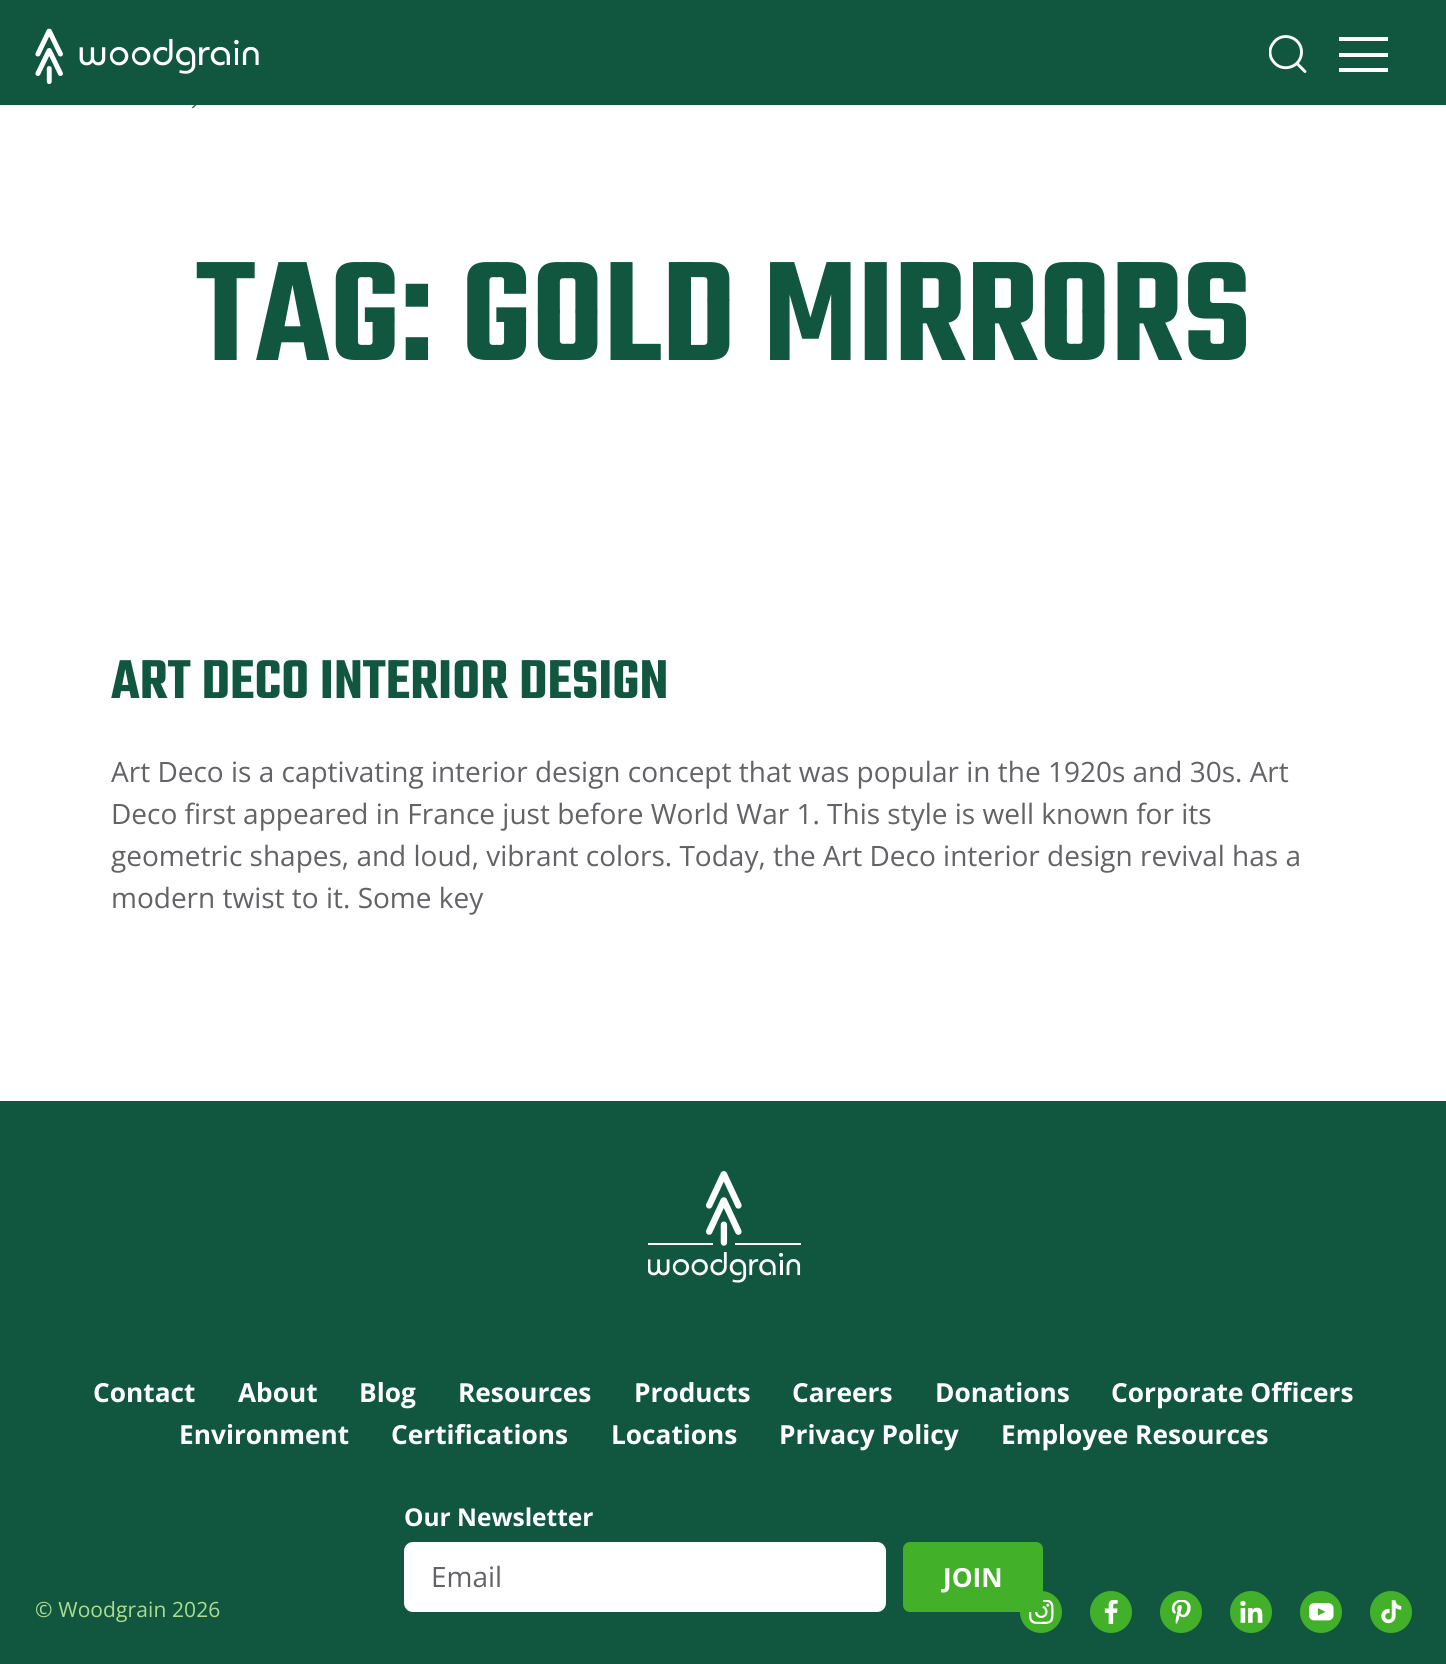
import math
import cairocffi as cairo

surface = cairo.ImageSurface(cairo.FORMAT_RGB24, 1446, 1664)
ctx = cairo.Context(surface)
options = cairo.FontOptions()
options.set_hint_metrics(cairo.HINT_METRICS_OFF)
options.set_hint_style(cairo.HINT_STYLE_NONE)
ctx.set_font_options(options)
ctx.set_miter_limit(4)


def rgb(r, g, b):
    ctx.set_source_rgb(r / 255, g / 255, b / 255)


def face(family, size, italic, bold):
    ctx.select_font_face(family, cairo.FONT_SLANT_ITALIC if italic else cairo.FONT_SLANT_NORMAL, cairo.FONT_WEIGHT_BOLD if bold else cairo.FONT_WEIGHT_NORMAL)
    ctx.set_font_size(size)


def label(x, y, s):
    ctx.move_to(x, y)
    ctx.show_text(s)


def tracked(x, y, s, letter, word):
    ctx.move_to(x, y)
    for ch in s:
        ctx.show_text(ch)
        ctx.rel_move_to(letter + word * (ch == ' '), 0)


def rect(x, y, w, h):
    ctx.rectangle(x, y, w, h)
    ctx.fill()


def rrect(x, y, w, h, r):
    ctx.new_sub_path()
    for i, (u, v) in enumerate([(x + w - r, y + h - r), (x + r, y + h - r), (x + r, y + r), (x + w - r, y + r)]):
        ctx.arc(u, v, r, i * math.pi / 2, (i + 1) * math.pi / 2)
    ctx.close_path()


def image(path, x, y, w, h):
    ctx.save()
    ctx.set_source_surface(cairo.ImageSurface.create_from_png(path), x, y)
    ctx.rectangle(x, y, w, h)
    ctx.fill()
    ctx.restore()


rgb(255, 255, 255)
ctx.paint()
rgb(17, 87, 64)
rect(0, 0, 1446, 105)
image('image0.png', 35, 28, 224, 56)
ctx.save()
ctx.rectangle(1269, 35, 38, 39)
ctx.clip()
ctx.new_path()
ctx.move_to(1301.5, 52)
ctx.curve_to(1301.5, 67.5, 1281.5, 73.5, 1273, 61)
ctx.curve_to(1271, 58.5, 1270, 55.5, 1270, 52)
ctx.curve_to(1270, 49, 1271, 46, 1273, 43.5)
ctx.curve_to(1281.5, 30.5, 1301.5, 37, 1301.5, 52)
ctx.close_path()
rgb(252, 252, 252)
ctx.set_line_width(2.9)
ctx.set_line_cap(cairo.LINE_CAP_ROUND)
ctx.set_line_join(cairo.LINE_JOIN_ROUND)
ctx.stroke()
ctx.restore()
ctx.new_path()
ctx.move_to(1305, 71.5)
ctx.line_to(1297.5, 64)
rgb(252, 252, 252)
ctx.set_line_width(2.9)
ctx.set_line_cap(cairo.LINE_CAP_ROUND)
ctx.set_line_join(cairo.LINE_JOIN_ROUND)
ctx.stroke()
rgb(255, 255, 255)
rect(1339, 37, 49, 4)
rect(1339, 53, 49, 4)
rect(1339, 68, 49, 4)
image('image1.png', 191, 105, 6, 4)
face('Teko SemiBold', 154, 0, 0)
rgb(17, 87, 64)
label(196, 360, 'TAG: GOLD MIRRORS')
face('Teko SemiBold', 59.5, 0, 0)
label(111, 698, 'ART DECO INTERIOR DESIGN')
face('Open Sans', 28, 0, 0)
rgb(100, 98, 102)
label(111, 782, 'Art Deco is a captivating interior design concept that was popular in the 1920s and 30s. Art')
label(111, 824, 'Deco first appeared in France just before World War 1. This style is well known for its')
label(111, 866, 'geometric shapes, and loud, vibrant colors. Today, the Art Deco interior design revival has a')
label(111, 908, 'modern twist to it. Some key')
rgb(17, 87, 64)
rect(0, 1101, 1446, 563)
image('image2.png', 648, 1171, 153, 112)
face('Open Sans', 26.25, 0, 1)
rgb(255, 255, 255)
label(93, 1402, 'Contact')
label(238, 1402, 'About')
label(359, 1402, 'Blog')
label(458, 1402, 'Resources')
label(634, 1402, 'Products')
label(792, 1402, 'Careers')
label(935, 1402, 'Donations')
label(1111, 1402, 'Corporate Officers')
label(179, 1444, 'Environment')
label(391, 1444, 'Certifications')
label(611, 1444, 'Locations')
label(779, 1444, 'Privacy Policy')
label(1001, 1444, 'Employee Resources')
face('Open Sans', 24.5, 0, 1)
label(404, 1526, 'Our Newsletter')
rrect(404, 1542, 482, 70, 9)
ctx.fill()
face('Open Sans', 28, 0, 0)
rgb(100, 98, 102)
label(431, 1587, 'Email')
rgb(67, 176, 42)
ctx.new_path()
ctx.arc(1041, 1612, 21, 0, 2 * math.pi)
ctx.fill()
image('image3.png', 1029, 1600, 25, 24)
rrect(903, 1542, 140, 70, 7)
ctx.fill()
face('Open Sans', 26.25, 0, 1)
rgb(255, 255, 255)
label(943, 1587, 'JOIN')
face('Open Sans', 21, 0, 0)
rgb(173, 220, 145)
tracked(35, 1617, '© Woodgrain 2026', 0.1, 0)
rgb(67, 176, 42)
ctx.new_path()
ctx.arc(1111, 1612, 21, 0, 2 * math.pi)
ctx.fill()
image('image4.png', 1104, 1600, 14, 24)
ctx.arc(1181, 1612, 21, 0, 2 * math.pi)
ctx.fill()
image('image5.png', 1171, 1600, 20, 24)
ctx.arc(1251, 1612, 21, 0, 2 * math.pi)
ctx.fill()
image('image6.png', 1240, 1600, 23, 23)
ctx.arc(1321, 1612, 21, 0, 2 * math.pi)
ctx.fill()
image('image7.png', 1309, 1603, 25, 18)
ctx.arc(1391, 1612, 21, 0, 2 * math.pi)
ctx.fill()
image('image8.png', 1381, 1600, 21, 24)
surface.write_to_png('render.png')
